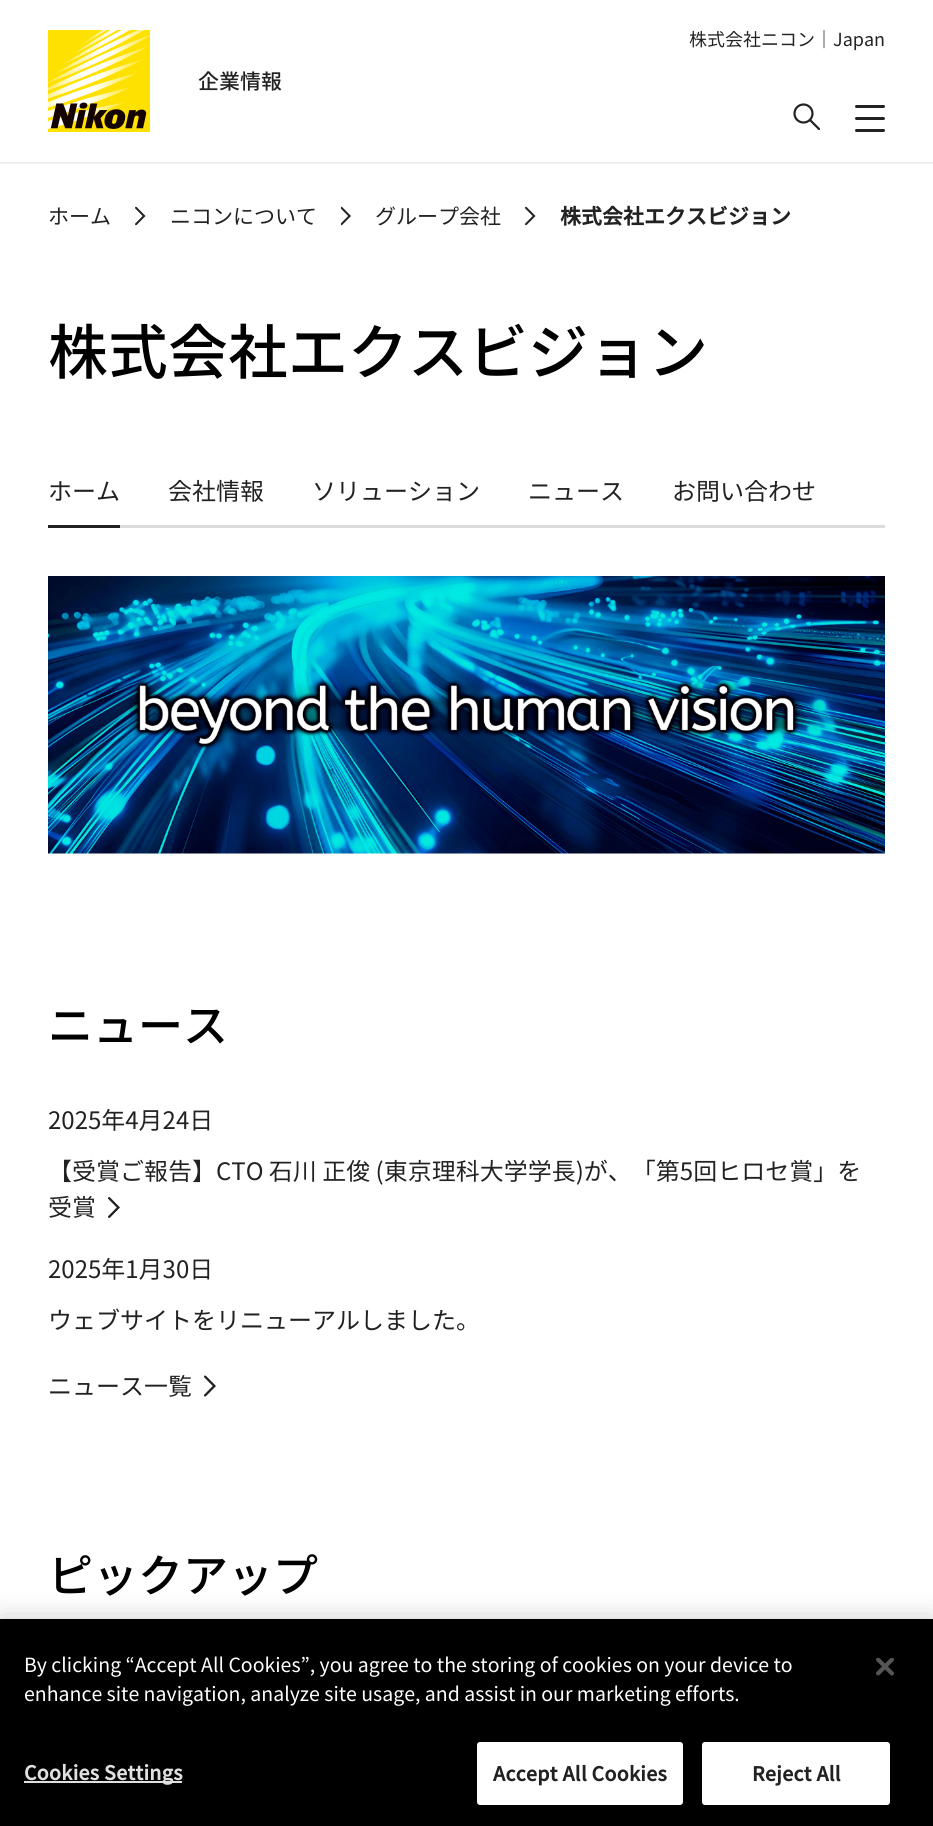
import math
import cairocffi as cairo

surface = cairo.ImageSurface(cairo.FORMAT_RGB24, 933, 1826)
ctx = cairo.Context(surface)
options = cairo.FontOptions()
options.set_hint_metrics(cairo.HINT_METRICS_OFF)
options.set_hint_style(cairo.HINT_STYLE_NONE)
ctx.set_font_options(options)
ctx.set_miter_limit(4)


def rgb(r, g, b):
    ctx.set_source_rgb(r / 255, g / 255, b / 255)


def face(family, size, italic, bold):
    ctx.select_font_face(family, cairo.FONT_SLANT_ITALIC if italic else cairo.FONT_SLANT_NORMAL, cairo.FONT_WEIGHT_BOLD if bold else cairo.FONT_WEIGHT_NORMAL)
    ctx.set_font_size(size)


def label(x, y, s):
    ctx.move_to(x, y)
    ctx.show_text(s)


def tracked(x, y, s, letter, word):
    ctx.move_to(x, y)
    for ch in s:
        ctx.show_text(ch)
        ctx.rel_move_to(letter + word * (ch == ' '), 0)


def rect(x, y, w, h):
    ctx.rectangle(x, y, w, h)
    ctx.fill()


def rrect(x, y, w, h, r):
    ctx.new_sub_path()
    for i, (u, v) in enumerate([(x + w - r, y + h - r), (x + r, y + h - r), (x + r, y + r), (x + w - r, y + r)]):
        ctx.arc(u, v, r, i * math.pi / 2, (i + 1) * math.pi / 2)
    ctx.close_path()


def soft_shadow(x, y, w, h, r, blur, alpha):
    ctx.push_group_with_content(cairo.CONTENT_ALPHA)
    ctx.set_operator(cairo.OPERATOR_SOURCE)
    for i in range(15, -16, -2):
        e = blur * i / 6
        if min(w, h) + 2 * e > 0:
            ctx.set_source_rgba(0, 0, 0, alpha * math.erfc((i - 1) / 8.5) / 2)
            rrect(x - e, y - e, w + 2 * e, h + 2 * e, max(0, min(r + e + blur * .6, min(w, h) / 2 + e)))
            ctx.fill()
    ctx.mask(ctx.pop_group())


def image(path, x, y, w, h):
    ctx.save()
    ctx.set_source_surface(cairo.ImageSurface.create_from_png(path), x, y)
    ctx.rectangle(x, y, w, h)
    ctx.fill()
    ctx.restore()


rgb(255, 255, 255)
ctx.paint()
rgb(238, 238, 238)
rect(0, 162, 933, 2)
face('Noto Sans JP', 18, 0, 0)
rgb(34, 34, 34)
label(689, 46, '株式会社ニコン｜Japan')
image('image0.png', 48, 30, 102, 102)
face('Noto Sans JP Medium', 21, 0, 0)
label(198, 89, '企業情報')
ctx.new_path()
ctx.arc(803.5, 113.5, 9, 0, 2 * math.pi)
ctx.set_line_width(2.2)
ctx.stroke()
ctx.new_path()
ctx.move_to(810, 120)
ctx.line_to(819, 129)
ctx.set_line_cap(cairo.LINE_CAP_ROUND)
ctx.stroke()
rrect(855, 105, 30, 3, 1.5)
ctx.fill()
rrect(855, 117, 30, 3, 1.5)
ctx.fill()
rrect(855, 129, 30, 3, 1.5)
ctx.fill()
face('Noto Sans JP', 21, 0, 0)
label(48, 224, 'ホーム')
image('image1.png', 135, 206, 11, 20)
label(170, 224, 'ニコンについて')
image('image2.png', 341, 206, 10, 20)
label(375, 224, 'グループ会社')
image('image1.png', 525, 206, 11, 20)
face('Noto Sans JP', 21, 0, 1)
label(560, 224, '株式会社エクスビジョン')
face('Noto Sans JP Medium', 60, 0, 0)
rgb(0, 0, 0)
label(48, 374, '株式会社エクスビジョン')
rgb(219, 219, 219)
rect(120, 525, 765, 3)
face('Noto Sans JP', 24, 0, 0)
rgb(34, 34, 34)
label(48, 500, 'ホーム')
rect(48, 525, 72, 3)
label(168, 500, '会社情報')
label(312, 500, 'ソリューション')
label(528, 500, 'ニュース')
label(672, 500, 'お問い合わせ')
image('image3.png', 48, 576, 837, 278)
face('Noto Sans JP Medium', 45, 0, 0)
rgb(0, 0, 0)
label(48, 1042, 'ニュース')
face('Noto Sans JP', 24, 0, 0)
rgb(34, 34, 34)
label(48, 1129, '2025年4月24日')
label(48, 1180, '【受賞ご報告】CTO 石川 正俊 (東京理科大学学長)が、「第5回ヒロセ賞」を')
label(48, 1216, '受賞')
image('image4.png', 108, 1197, 12, 21)
label(48, 1278, '2025年1月30日')
label(48, 1329, 'ウェブサイトをリニューアルしました。')
label(48, 1395, 'ニュース一覧')
image('image5.png', 204, 1375, 12, 22)
face('Noto Sans JP Medium', 45, 0, 0)
rgb(0, 0, 0)
label(48, 1592, 'ピックアップ')
rgb(0, 0, 0)
soft_shadow(0, 1619, 933, 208, 0, 13.5, 0.2)
rgb(0, 0, 0)
rect(0, 1619, 933, 207)
face('Noto Sans JP', 19.5, 0, 0)
rgb(255, 255, 255)
label(24, 1672, 'By clicking “Accept All Cookies”, you agree to the storing of cookies on your device to')
label(24, 1701, 'enhance site navigation, analyze site usage, and assist in our marketing efforts.')
rgb(224, 224, 224)
rect(24, 1781, 158, 2)
face('Noto Sans JP', 19.5, 0, 1)
tracked(24, 1780, 'Cookies Settings', 0.25, 0)
rgb(255, 255, 255)
rrect(478, 1743, 204, 61, 2)
ctx.fill_preserve()
ctx.set_line_width(2)
ctx.set_line_cap(cairo.LINE_CAP_BUTT)
ctx.stroke()
rgb(34, 34, 34)
tracked(493, 1781, 'Accept All Cookies', 0.25, 0)
rgb(255, 255, 255)
rrect(703, 1743, 186, 61, 2)
ctx.fill_preserve()
ctx.stroke()
rgb(34, 34, 34)
tracked(752, 1781, 'Reject All', 0.25, 0)
image('image6.png', 876, 1658, 18, 18)
surface.write_to_png('render.png')
